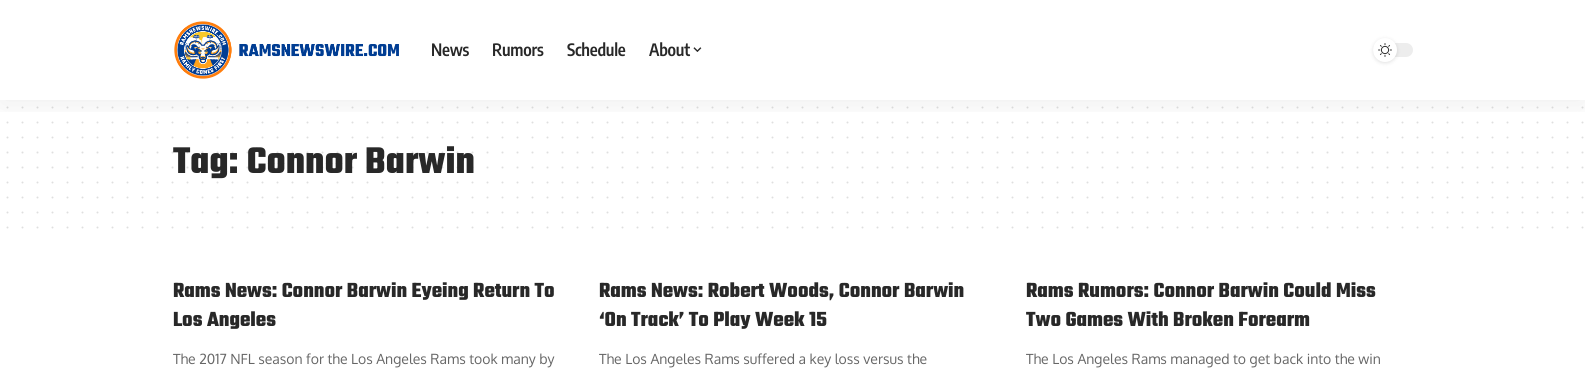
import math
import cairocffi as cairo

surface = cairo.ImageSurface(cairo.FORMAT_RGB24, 1585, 380)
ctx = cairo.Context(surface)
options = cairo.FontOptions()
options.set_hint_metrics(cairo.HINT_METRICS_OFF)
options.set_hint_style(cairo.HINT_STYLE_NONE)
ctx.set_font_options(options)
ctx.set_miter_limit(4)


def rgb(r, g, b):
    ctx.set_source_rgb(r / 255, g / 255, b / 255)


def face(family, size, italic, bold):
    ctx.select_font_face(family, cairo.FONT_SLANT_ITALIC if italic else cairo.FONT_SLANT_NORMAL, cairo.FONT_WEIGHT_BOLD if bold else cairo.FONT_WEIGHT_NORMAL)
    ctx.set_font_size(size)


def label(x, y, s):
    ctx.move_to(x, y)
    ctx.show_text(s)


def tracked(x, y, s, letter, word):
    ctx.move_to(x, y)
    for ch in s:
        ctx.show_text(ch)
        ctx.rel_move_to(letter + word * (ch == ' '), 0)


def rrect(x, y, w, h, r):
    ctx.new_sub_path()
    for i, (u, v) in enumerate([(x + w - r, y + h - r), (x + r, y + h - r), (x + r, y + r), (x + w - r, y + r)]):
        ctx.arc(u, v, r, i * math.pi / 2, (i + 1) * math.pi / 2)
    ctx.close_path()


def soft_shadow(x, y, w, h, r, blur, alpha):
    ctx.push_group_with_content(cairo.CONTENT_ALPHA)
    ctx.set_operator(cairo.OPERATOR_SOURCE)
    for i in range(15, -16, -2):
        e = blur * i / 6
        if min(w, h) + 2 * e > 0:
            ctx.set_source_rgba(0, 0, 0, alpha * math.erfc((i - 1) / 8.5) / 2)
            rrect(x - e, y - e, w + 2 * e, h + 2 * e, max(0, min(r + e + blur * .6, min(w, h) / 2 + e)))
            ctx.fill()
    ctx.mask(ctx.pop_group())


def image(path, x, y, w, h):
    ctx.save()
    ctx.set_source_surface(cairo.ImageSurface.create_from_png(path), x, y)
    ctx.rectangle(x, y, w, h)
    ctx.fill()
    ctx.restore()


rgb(255, 255, 255)
ctx.paint()
ctx.new_path()
ctx.move_to(7.5, 107.5)
ctx.line_to(1582.7, 107.5)
rgb(223, 223, 223)
ctx.set_line_cap(cairo.LINE_CAP_ROUND)
ctx.set_dash([0, 15])
ctx.stroke()
ctx.new_path()
ctx.move_to(7.5, 122.5)
ctx.line_to(1582.7, 122.5)
ctx.stroke()
ctx.new_path()
ctx.move_to(7.5, 137.5)
ctx.line_to(1582.7, 137.5)
ctx.stroke()
ctx.save()
ctx.rectangle(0, 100, 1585, 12)
ctx.clip()
rgb(0, 0, 0)
soft_shadow(0, 4, 1585, 100, 0, 15, 0.07)
ctx.restore()
image('image0.png', 174, 21, 225, 58)
face('Encode Sans Condensed SemiBold', 17, 0, 0)
rgb(40, 40, 40)
tracked(431, 56, 'News', -0.25, 0)
tracked(492, 56, 'Rumors', -0.25, 0)
tracked(567, 56, 'Schedule', -0.25, 0)
tracked(649, 56, 'About', -0.25, 0)
image('image1.png', 693, 47, 9, 5)
rgb(237, 237, 237)
rrect(1373, 43, 40, 14, 7)
ctx.fill()
rgb(0, 0, 0)
soft_shadow(1373, 39, 24, 24, 12, 2, 0.12)
rgb(255, 255, 255)
ctx.arc(1385, 50, 12, 0, 2 * math.pi)
ctx.fill()
image('image2.png', 1378, 43, 14, 14)
face('Teko Light', 40, 0, 0)
rgb(40, 40, 40)
label(173, 173, 'Tag: Connor Barwin')
ctx.new_path()
ctx.move_to(7.5, 152.5)
ctx.line_to(1582.7, 152.5)
ctx.set_source_rgba(0.157, 0.157, 0.157, 0.15)
ctx.stroke()
ctx.new_path()
ctx.move_to(7.5, 167.5)
ctx.line_to(1582.7, 167.5)
ctx.stroke()
ctx.new_path()
ctx.move_to(7.5, 182.5)
ctx.line_to(1582.7, 182.5)
rgb(223, 223, 223)
ctx.stroke()
ctx.new_path()
ctx.move_to(7.5, 197.5)
ctx.line_to(1582.7, 197.5)
ctx.stroke()
ctx.new_path()
ctx.move_to(7.5, 212.5)
ctx.line_to(1582.7, 212.5)
ctx.stroke()
ctx.new_path()
ctx.move_to(7.5, 227.5)
ctx.line_to(1582.7, 227.5)
ctx.stroke()
face('Teko Light', 22, 0, 0)
rgb(40, 40, 40)
label(173, 297, 'Rams News: Connor Barwin Eyeing Return To')
label(173, 326, 'Los Angeles')
face('Oxygen', 14, 0, 0)
rgb(102, 102, 102)
label(173, 364, 'The 2017 NFL season for the Los Angeles Rams took many by')
face('Teko Light', 22, 0, 0)
rgb(40, 40, 40)
label(599, 297, 'Rams News: Robert Woods, Connor Barwin')
label(599, 326, '‘On Track’ To Play Week 15')
face('Oxygen', 14, 0, 0)
rgb(102, 102, 102)
label(599, 364, 'The Los Angeles Rams suffered a key loss versus the')
face('Teko Light', 22, 0, 0)
rgb(40, 40, 40)
label(1026, 297, 'Rams Rumors: Connor Barwin Could Miss')
label(1026, 326, 'Two Games With Broken Forearm')
face('Oxygen', 14, 0, 0)
rgb(102, 102, 102)
label(1026, 364, 'The Los Angeles Rams managed to get back into the win')
surface.write_to_png('render.png')
